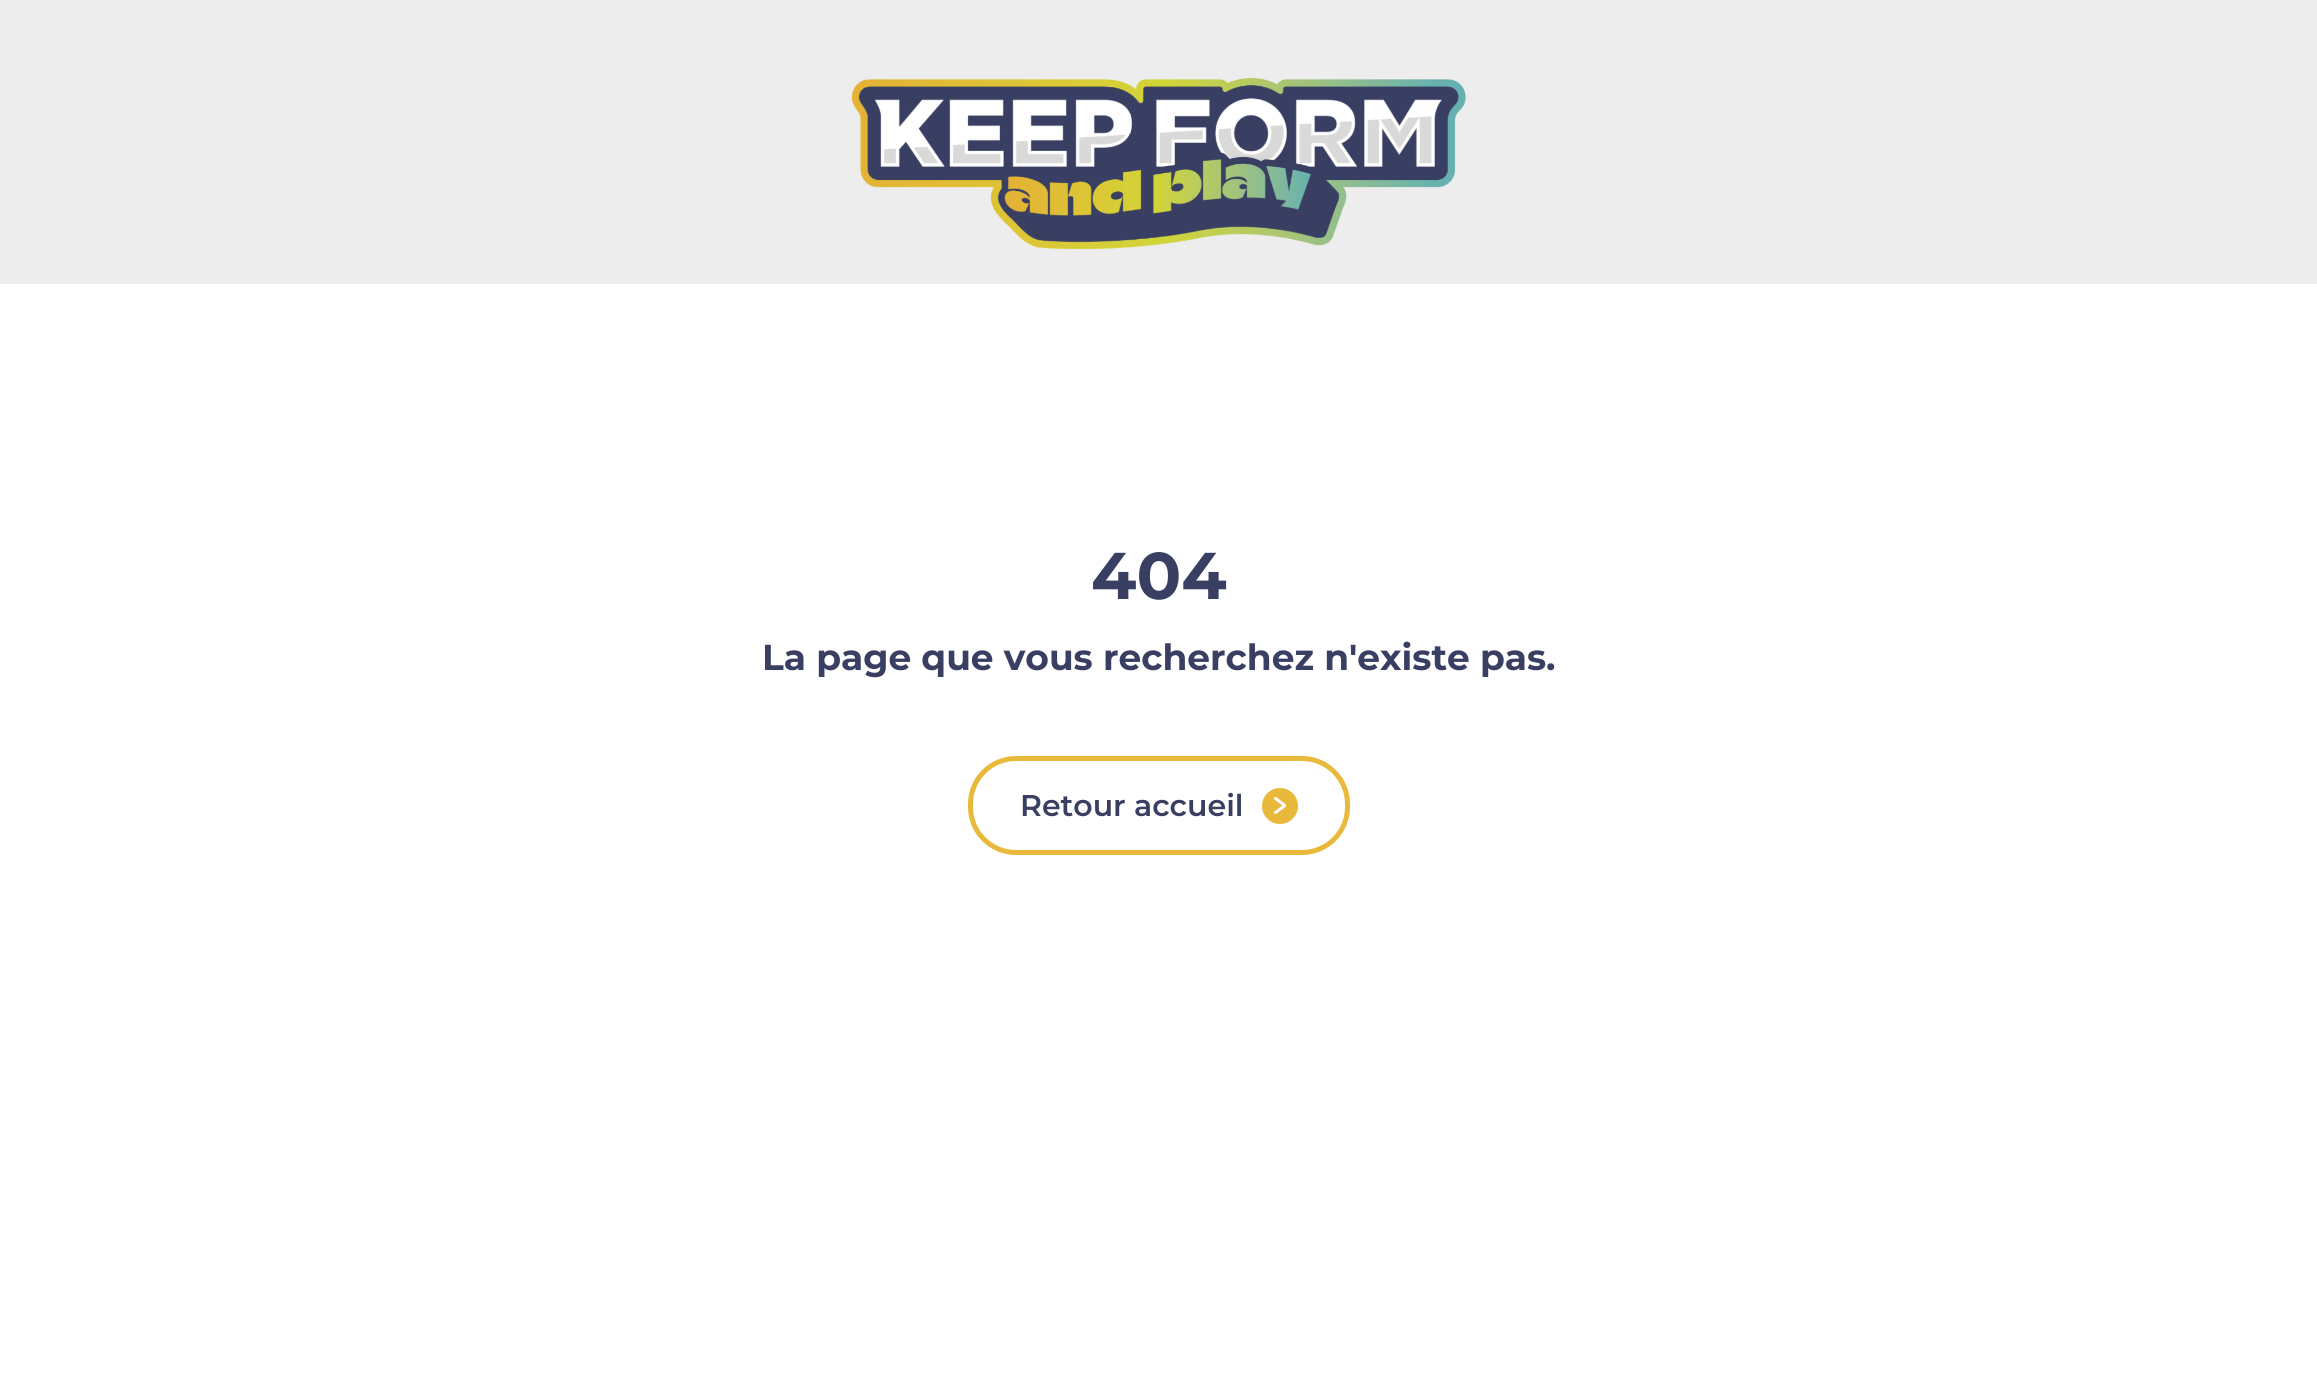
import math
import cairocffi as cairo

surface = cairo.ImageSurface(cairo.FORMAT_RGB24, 2317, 1397)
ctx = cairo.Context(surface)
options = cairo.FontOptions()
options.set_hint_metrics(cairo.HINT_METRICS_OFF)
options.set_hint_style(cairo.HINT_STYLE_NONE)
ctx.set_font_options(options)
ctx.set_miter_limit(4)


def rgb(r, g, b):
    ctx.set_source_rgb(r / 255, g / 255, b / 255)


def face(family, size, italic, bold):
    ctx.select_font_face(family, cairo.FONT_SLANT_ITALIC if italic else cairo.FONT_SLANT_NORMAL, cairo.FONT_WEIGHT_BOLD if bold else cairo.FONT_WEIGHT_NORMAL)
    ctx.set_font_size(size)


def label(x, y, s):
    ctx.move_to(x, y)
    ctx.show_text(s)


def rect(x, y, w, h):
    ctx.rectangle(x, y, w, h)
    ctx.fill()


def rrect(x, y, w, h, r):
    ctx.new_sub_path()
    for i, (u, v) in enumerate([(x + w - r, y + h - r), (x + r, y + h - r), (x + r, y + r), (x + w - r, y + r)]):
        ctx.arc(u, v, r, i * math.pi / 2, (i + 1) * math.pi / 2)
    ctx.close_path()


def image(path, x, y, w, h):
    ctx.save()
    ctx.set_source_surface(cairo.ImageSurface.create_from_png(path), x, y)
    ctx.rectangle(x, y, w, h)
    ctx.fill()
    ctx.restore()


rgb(255, 255, 255)
ctx.paint()
rgb(237, 237, 237)
rect(0, 0, 2317, 284)
image('image0.png', 851, 78, 615, 171)
face('Montserrat', 66, 0, 1)
rgb(56, 63, 98)
label(1091, 599, '404')
face('Montserrat', 36, 0, 1)
label(762, 670, 'La page que vous recherchez n\'existe pas.')
rrect(970.5, 758.5, 377, 94, 45.5)
rgb(232, 185, 58)
ctx.set_line_width(5)
ctx.stroke()
face('Montserrat SemiBold', 30, 0, 0)
rgb(56, 63, 98)
label(1020, 816, 'Retour accueil')
rgb(232, 185, 58)
ctx.new_path()
ctx.arc(1280, 806, 18, 0, 2 * math.pi)
ctx.fill()
ctx.save()
ctx.rectangle(1274, 797, 12, 18)
ctx.clip()
ctx.new_path()
ctx.move_to(1275.5, 798.5)
ctx.line_to(1285, 805.5)
ctx.line_to(1275.5, 812.5)
rgb(255, 255, 255)
ctx.set_line_width(3)
ctx.set_line_cap(cairo.LINE_CAP_ROUND)
ctx.set_line_join(cairo.LINE_JOIN_ROUND)
ctx.stroke()
ctx.restore()
surface.write_to_png('render.png')
